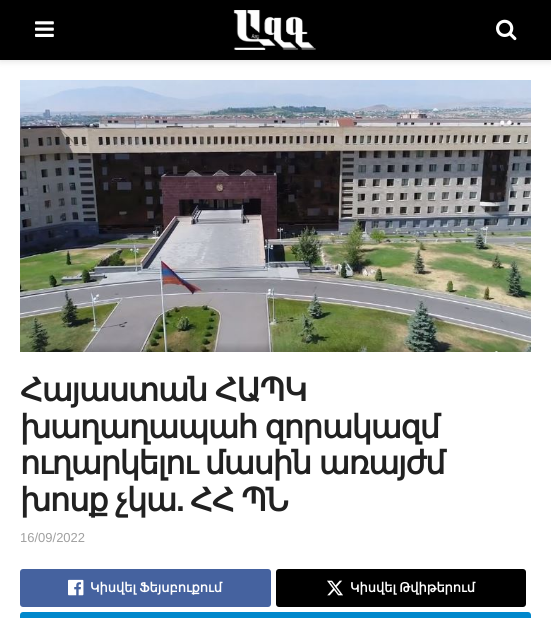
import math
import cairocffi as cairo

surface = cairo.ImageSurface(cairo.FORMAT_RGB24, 551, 618)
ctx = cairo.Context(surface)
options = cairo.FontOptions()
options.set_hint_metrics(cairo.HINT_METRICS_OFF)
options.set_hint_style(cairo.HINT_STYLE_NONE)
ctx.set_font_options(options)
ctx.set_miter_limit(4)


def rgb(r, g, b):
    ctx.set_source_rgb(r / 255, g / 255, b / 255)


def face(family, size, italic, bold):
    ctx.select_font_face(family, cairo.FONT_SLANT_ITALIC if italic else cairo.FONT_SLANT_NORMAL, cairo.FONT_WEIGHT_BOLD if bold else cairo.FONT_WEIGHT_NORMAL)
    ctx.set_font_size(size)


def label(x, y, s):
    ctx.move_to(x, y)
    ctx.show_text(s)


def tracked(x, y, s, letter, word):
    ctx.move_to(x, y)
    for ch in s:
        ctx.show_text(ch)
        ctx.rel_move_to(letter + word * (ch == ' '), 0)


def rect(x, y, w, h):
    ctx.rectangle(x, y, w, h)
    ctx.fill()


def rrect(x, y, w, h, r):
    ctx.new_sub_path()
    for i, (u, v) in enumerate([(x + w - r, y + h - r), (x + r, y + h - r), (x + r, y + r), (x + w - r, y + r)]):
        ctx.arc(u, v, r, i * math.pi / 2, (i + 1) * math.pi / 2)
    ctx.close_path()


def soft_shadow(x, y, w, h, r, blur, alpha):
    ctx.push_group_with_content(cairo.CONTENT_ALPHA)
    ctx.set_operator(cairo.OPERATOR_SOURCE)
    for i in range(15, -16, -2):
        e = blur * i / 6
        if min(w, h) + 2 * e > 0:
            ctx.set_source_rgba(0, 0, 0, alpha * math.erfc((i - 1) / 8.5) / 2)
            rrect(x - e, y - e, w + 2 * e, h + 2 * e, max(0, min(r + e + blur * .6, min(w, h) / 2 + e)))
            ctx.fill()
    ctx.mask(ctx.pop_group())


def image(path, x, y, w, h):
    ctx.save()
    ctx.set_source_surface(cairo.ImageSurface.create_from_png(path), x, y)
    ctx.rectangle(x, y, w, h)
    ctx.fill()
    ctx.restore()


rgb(255, 255, 255)
ctx.paint()
rgb(0, 0, 0)
soft_shadow(0, 2, 551, 60, 0, 3, 0.1)
rgb(0, 0, 0)
rect(0, 0, 551, 60)
image('image0.png', 35, 21, 19, 16)
image('image1.png', 233, 10, 83, 40)
image('image2.png', 496, 19, 21, 22)
image('image3.png', 20, 80, 511, 272)
face('DejaVu Sans', 32, 0, 1)
rgb(33, 33, 33)
tracked(20, 401, 'Հայաստան ՀԱՊԿ', -1.25, -1)
tracked(20, 438, 'խաղաղապահ զորակազմ', -1.25, -1)
tracked(20, 474, 'ուղարկելու մասին առայժմ', -1.25, -1)
tracked(20, 511, 'խոսք չկա', -1.25, -1)
face('Liberation Sans', 32, 0, 1)
tracked(176, 511, '.', -1.25, 0)
face('DejaVu Sans', 32, 0, 1)
tracked(190, 511, 'ՀՀ ՊՆ', -1.25, -1)
face('Liberation Sans', 13, 0, 0)
rgb(160, 160, 160)
label(20, 542, '16/09/2022')
rgb(69, 98, 159)
rrect(20, 569, 251, 38, 3)
ctx.fill()
image('image4.png', 68, 579, 16, 17)
face('DejaVu Sans', 13, 0, 1)
rgb(255, 255, 255)
tracked(90, 592, 'Կիսվել Ֆեյսբուքում', 0, -1)
rgb(0, 0, 0)
rrect(276, 569, 250, 38, 3)
ctx.fill()
image('image5.png', 327, 580, 16, 16)
rgb(255, 255, 255)
tracked(350, 592, 'Կիսվել Թվիթերում', 0, -1)
rgb(0, 136, 204)
rrect(20, 612, 511, 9, 3)
ctx.fill()
surface.write_to_png('render.png')
